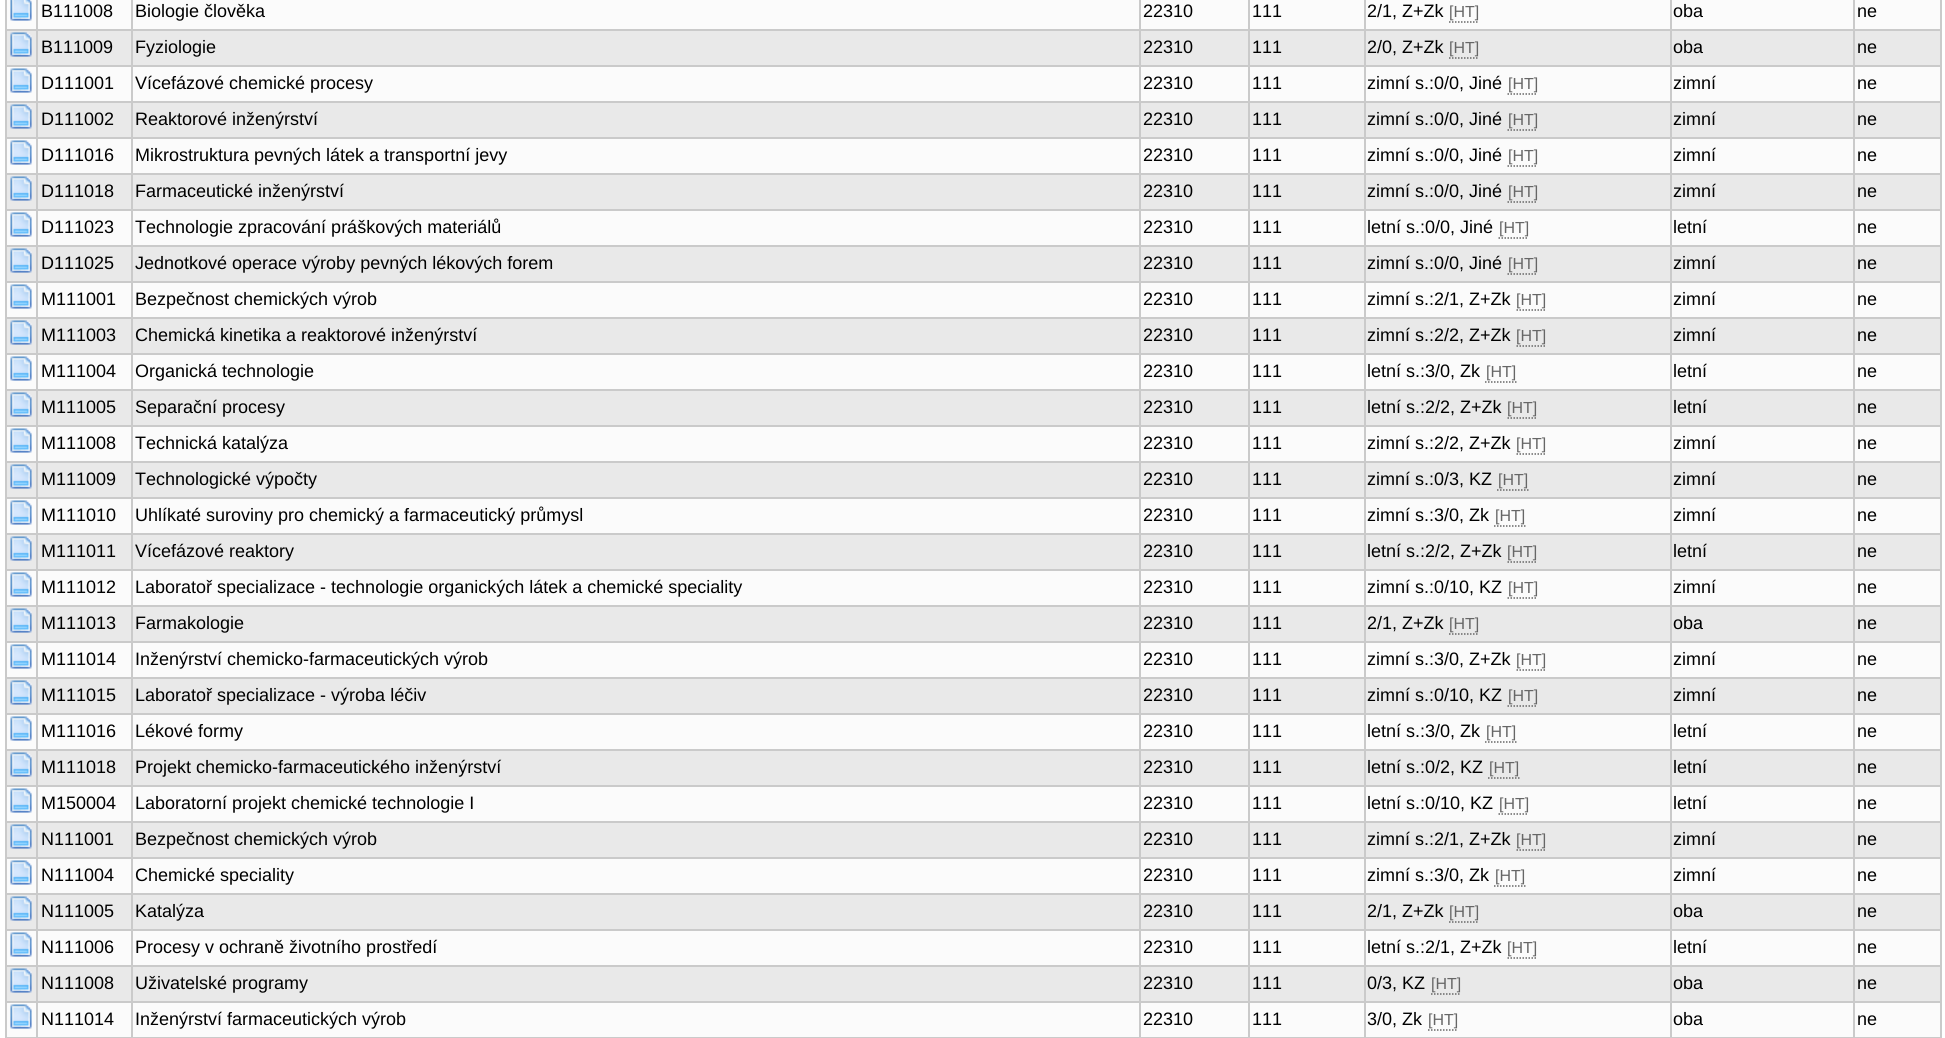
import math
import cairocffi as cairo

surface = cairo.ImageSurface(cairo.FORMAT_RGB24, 1945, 1038)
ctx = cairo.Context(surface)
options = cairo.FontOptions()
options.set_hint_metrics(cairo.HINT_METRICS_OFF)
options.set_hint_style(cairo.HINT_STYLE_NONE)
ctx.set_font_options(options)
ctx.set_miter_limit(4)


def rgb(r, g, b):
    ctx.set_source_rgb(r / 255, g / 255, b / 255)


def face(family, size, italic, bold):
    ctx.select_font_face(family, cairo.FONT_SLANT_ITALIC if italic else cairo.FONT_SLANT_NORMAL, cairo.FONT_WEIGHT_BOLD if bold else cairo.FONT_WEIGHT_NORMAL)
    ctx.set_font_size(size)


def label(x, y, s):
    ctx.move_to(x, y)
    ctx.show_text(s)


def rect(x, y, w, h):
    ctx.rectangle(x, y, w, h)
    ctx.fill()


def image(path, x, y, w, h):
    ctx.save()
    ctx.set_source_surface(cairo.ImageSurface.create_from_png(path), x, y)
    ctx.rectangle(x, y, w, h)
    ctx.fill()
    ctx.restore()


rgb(255, 255, 255)
ctx.paint()
rgb(251, 251, 251)
rect(7, 0, 1933, 29)
image('image0.png', 10, 0, 22, 21)
face('Liberation Sans', 18, 0, 0)
rgb(0, 0, 0)
label(41, 17, 'B111008')
label(135, 17, 'Biologie člověka')
label(1143, 17, '22310')
label(1252, 17, '111')
label(1367, 17, '2/1, Z+Zk')
face('Liberation Sans', 16, 0, 0)
rgb(102, 102, 102)
label(1449, 17, '[HT]')
ctx.new_path()
ctx.move_to(1449, 22)
ctx.line_to(1479, 22)
ctx.set_line_width(1.5)
ctx.set_dash([1.5, 1.5])
ctx.stroke()
face('Liberation Sans', 18, 0, 0)
rgb(0, 0, 0)
label(1673, 17, 'oba')
label(1857, 17, 'ne')
rgb(233, 233, 233)
rect(7, 31, 1933, 34)
rgb(202, 202, 202)
rect(5, 29, 1936, 2)
rect(5, 65, 1936, 2)
rect(5, 101, 1936, 2)
rect(5, 137, 1936, 2)
rect(5, 173, 1936, 2)
rect(5, 209, 1936, 2)
rect(5, 245, 1936, 2)
rect(5, 281, 1936, 2)
rect(5, 317, 1936, 2)
rect(5, 353, 1936, 2)
rect(5, 389, 1936, 2)
rect(5, 425, 1936, 2)
rect(5, 461, 1936, 2)
rect(5, 497, 1936, 2)
rect(5, 533, 1936, 2)
rect(5, 569, 1936, 2)
rect(5, 605, 1936, 2)
rect(5, 641, 1936, 2)
rect(5, 677, 1936, 2)
rect(5, 713, 1936, 2)
rect(5, 749, 1936, 2)
rect(5, 785, 1936, 2)
rect(5, 821, 1936, 2)
rect(5, 857, 1936, 2)
rect(5, 893, 1936, 2)
rect(5, 929, 1936, 2)
rect(5, 965, 1936, 2)
rect(5, 1001, 1936, 2)
rect(5, 1037, 1936, 1)
rect(1940, 1001, 2, 37)
rect(1940, 965, 2, 37)
rect(1940, 929, 2, 37)
rect(1940, 893, 2, 37)
rect(1940, 857, 2, 37)
rect(1940, 821, 2, 37)
rect(1940, 785, 2, 37)
rect(1940, 749, 2, 37)
rect(1940, 713, 2, 37)
rect(1940, 677, 2, 37)
rect(1940, 641, 2, 37)
rect(1940, 605, 2, 37)
rect(1940, 569, 2, 37)
rect(1940, 533, 2, 37)
rect(1940, 497, 2, 37)
rect(1940, 461, 2, 37)
rect(1940, 425, 2, 37)
rect(1940, 389, 2, 37)
rect(1940, 353, 2, 37)
rect(1940, 317, 2, 37)
rect(1940, 281, 2, 37)
rect(1940, 245, 2, 37)
rect(1940, 209, 2, 37)
rect(1940, 173, 2, 37)
rect(1940, 137, 2, 37)
rect(1940, 101, 2, 37)
rect(1940, 65, 2, 37)
rect(1940, 0, 2, 66)
rect(5, 1001, 2, 37)
rect(5, 965, 2, 37)
rect(5, 929, 2, 37)
rect(5, 893, 2, 37)
rect(5, 857, 2, 37)
rect(5, 821, 2, 37)
rect(5, 785, 2, 37)
rect(5, 749, 2, 37)
rect(5, 713, 2, 37)
rect(5, 677, 2, 37)
rect(5, 641, 2, 37)
rect(5, 605, 2, 37)
rect(5, 569, 2, 37)
rect(5, 533, 2, 37)
rect(5, 497, 2, 37)
rect(5, 461, 2, 37)
rect(5, 425, 2, 37)
rect(5, 389, 2, 37)
rect(5, 353, 2, 37)
rect(5, 317, 2, 37)
rect(5, 281, 2, 37)
rect(5, 245, 2, 37)
rect(5, 209, 2, 37)
rect(5, 173, 2, 37)
rect(5, 137, 2, 37)
rect(5, 101, 2, 37)
rect(5, 65, 2, 37)
rect(5, 0, 2, 66)
image('image1.png', 10, 32, 22, 25)
rgb(0, 0, 0)
label(41, 53, 'B111009')
label(135, 53, 'Fyziologie')
label(1143, 53, '22310')
label(1252, 53, '111')
label(1367, 53, '2/0, Z+Zk')
face('Liberation Sans', 16, 0, 0)
rgb(102, 102, 102)
label(1449, 53, '[HT]')
ctx.new_path()
ctx.move_to(1449, 58)
ctx.line_to(1479, 58)
ctx.stroke()
face('Liberation Sans', 18, 0, 0)
rgb(0, 0, 0)
label(1673, 53, 'oba')
label(1857, 53, 'ne')
rgb(251, 251, 251)
rect(7, 67, 1933, 34)
image('image2.png', 10, 68, 22, 25)
rgb(0, 0, 0)
label(41, 89, 'D111001')
label(135, 89, 'Vícefázové chemické procesy')
label(1143, 89, '22310')
label(1252, 89, '111')
label(1367, 89, 'zimní s.:0/0, Jiné')
face('Liberation Sans', 16, 0, 0)
rgb(102, 102, 102)
label(1508, 89, '[HT]')
ctx.new_path()
ctx.move_to(1507.5, 94)
ctx.line_to(1537.5, 94)
ctx.stroke()
face('Liberation Sans', 18, 0, 0)
rgb(0, 0, 0)
label(1673, 89, 'zimní')
label(1857, 89, 'ne')
rgb(233, 233, 233)
rect(7, 103, 1933, 34)
image('image1.png', 10, 104, 22, 25)
rgb(0, 0, 0)
label(41, 125, 'D111002')
label(135, 125, 'Reaktorové inženýrství')
label(1143, 125, '22310')
label(1252, 125, '111')
label(1367, 125, 'zimní s.:0/0, Jiné')
face('Liberation Sans', 16, 0, 0)
rgb(102, 102, 102)
label(1508, 125, '[HT]')
ctx.new_path()
ctx.move_to(1507.5, 130)
ctx.line_to(1537.5, 130)
ctx.stroke()
face('Liberation Sans', 18, 0, 0)
rgb(0, 0, 0)
label(1673, 125, 'zimní')
label(1857, 125, 'ne')
rgb(251, 251, 251)
rect(7, 139, 1933, 34)
image('image2.png', 10, 140, 22, 25)
rgb(0, 0, 0)
label(41, 161, 'D111016')
label(135, 161, 'Mikrostruktura pevných látek a transportní jevy')
label(1143, 161, '22310')
label(1252, 161, '111')
label(1367, 161, 'zimní s.:0/0, Jiné')
face('Liberation Sans', 16, 0, 0)
rgb(102, 102, 102)
label(1508, 161, '[HT]')
ctx.new_path()
ctx.move_to(1507.5, 166)
ctx.line_to(1537.5, 166)
ctx.stroke()
face('Liberation Sans', 18, 0, 0)
rgb(0, 0, 0)
label(1673, 161, 'zimní')
label(1857, 161, 'ne')
rgb(233, 233, 233)
rect(7, 175, 1933, 34)
image('image1.png', 10, 176, 22, 25)
rgb(0, 0, 0)
label(41, 197, 'D111018')
label(135, 197, 'Farmaceutické inženýrství')
label(1143, 197, '22310')
label(1252, 197, '111')
label(1367, 197, 'zimní s.:0/0, Jiné')
face('Liberation Sans', 16, 0, 0)
rgb(102, 102, 102)
label(1508, 197, '[HT]')
ctx.new_path()
ctx.move_to(1507.5, 202)
ctx.line_to(1537.5, 202)
ctx.stroke()
face('Liberation Sans', 18, 0, 0)
rgb(0, 0, 0)
label(1673, 197, 'zimní')
label(1857, 197, 'ne')
rgb(251, 251, 251)
rect(7, 211, 1933, 34)
image('image2.png', 10, 212, 22, 25)
rgb(0, 0, 0)
label(41, 233, 'D111023')
label(135, 233, 'Technologie zpracování práškových materiálů')
label(1143, 233, '22310')
label(1252, 233, '111')
label(1367, 233, 'letní s.:0/0, Jiné')
face('Liberation Sans', 16, 0, 0)
rgb(102, 102, 102)
label(1499, 233, '[HT]')
ctx.new_path()
ctx.move_to(1498.5, 238)
ctx.line_to(1528.5, 238)
ctx.stroke()
face('Liberation Sans', 18, 0, 0)
rgb(0, 0, 0)
label(1673, 233, 'letní')
label(1857, 233, 'ne')
rgb(233, 233, 233)
rect(7, 247, 1933, 34)
image('image1.png', 10, 248, 22, 25)
rgb(0, 0, 0)
label(41, 269, 'D111025')
label(135, 269, 'Jednotkové operace výroby pevných lékových forem')
label(1143, 269, '22310')
label(1252, 269, '111')
label(1367, 269, 'zimní s.:0/0, Jiné')
face('Liberation Sans', 16, 0, 0)
rgb(102, 102, 102)
label(1508, 269, '[HT]')
ctx.new_path()
ctx.move_to(1507.5, 274)
ctx.line_to(1537.5, 274)
ctx.stroke()
face('Liberation Sans', 18, 0, 0)
rgb(0, 0, 0)
label(1673, 269, 'zimní')
label(1857, 269, 'ne')
rgb(251, 251, 251)
rect(7, 283, 1933, 34)
image('image2.png', 10, 284, 22, 25)
rgb(0, 0, 0)
label(41, 305, 'M111001')
label(135, 305, 'Bezpečnost chemických výrob')
label(1143, 305, '22310')
label(1252, 305, '111')
label(1367, 305, 'zimní s.:2/1, Z+Zk')
face('Liberation Sans', 16, 0, 0)
rgb(102, 102, 102)
label(1516, 305, '[HT]')
ctx.new_path()
ctx.move_to(1516.5, 310)
ctx.line_to(1546.5, 310)
ctx.stroke()
face('Liberation Sans', 18, 0, 0)
rgb(0, 0, 0)
label(1673, 305, 'zimní')
label(1857, 305, 'ne')
rgb(233, 233, 233)
rect(7, 319, 1933, 34)
image('image1.png', 10, 320, 22, 25)
rgb(0, 0, 0)
label(41, 341, 'M111003')
label(135, 341, 'Chemická kinetika a reaktorové inženýrství')
label(1143, 341, '22310')
label(1252, 341, '111')
label(1367, 341, 'zimní s.:2/2, Z+Zk')
face('Liberation Sans', 16, 0, 0)
rgb(102, 102, 102)
label(1516, 341, '[HT]')
ctx.new_path()
ctx.move_to(1516.5, 346)
ctx.line_to(1546.5, 346)
ctx.stroke()
face('Liberation Sans', 18, 0, 0)
rgb(0, 0, 0)
label(1673, 341, 'zimní')
label(1857, 341, 'ne')
rgb(251, 251, 251)
rect(7, 355, 1933, 34)
image('image2.png', 10, 356, 22, 25)
rgb(0, 0, 0)
label(41, 377, 'M111004')
label(135, 377, 'Organická technologie')
label(1143, 377, '22310')
label(1252, 377, '111')
label(1367, 377, 'letní s.:3/0, Zk')
face('Liberation Sans', 16, 0, 0)
rgb(102, 102, 102)
label(1486, 377, '[HT]')
ctx.new_path()
ctx.move_to(1485, 382)
ctx.line_to(1516.5, 382)
ctx.stroke()
face('Liberation Sans', 18, 0, 0)
rgb(0, 0, 0)
label(1673, 377, 'letní')
label(1857, 377, 'ne')
rgb(233, 233, 233)
rect(7, 391, 1933, 34)
image('image1.png', 10, 392, 22, 25)
rgb(0, 0, 0)
label(41, 413, 'M111005')
label(135, 413, 'Separační procesy')
label(1143, 413, '22310')
label(1252, 413, '111')
label(1367, 413, 'letní s.:2/2, Z+Zk')
face('Liberation Sans', 16, 0, 0)
rgb(102, 102, 102)
label(1507, 413, '[HT]')
ctx.new_path()
ctx.move_to(1507.5, 418)
ctx.line_to(1537.5, 418)
ctx.stroke()
face('Liberation Sans', 18, 0, 0)
rgb(0, 0, 0)
label(1673, 413, 'letní')
label(1857, 413, 'ne')
rgb(251, 251, 251)
rect(7, 427, 1933, 34)
image('image2.png', 10, 428, 22, 25)
rgb(0, 0, 0)
label(41, 449, 'M111008')
label(135, 449, 'Technická katalýza')
label(1143, 449, '22310')
label(1252, 449, '111')
label(1367, 449, 'zimní s.:2/2, Z+Zk')
face('Liberation Sans', 16, 0, 0)
rgb(102, 102, 102)
label(1516, 449, '[HT]')
ctx.new_path()
ctx.move_to(1516.5, 454)
ctx.line_to(1546.5, 454)
ctx.stroke()
face('Liberation Sans', 18, 0, 0)
rgb(0, 0, 0)
label(1673, 449, 'zimní')
label(1857, 449, 'ne')
rgb(233, 233, 233)
rect(7, 463, 1933, 34)
image('image1.png', 10, 464, 22, 25)
rgb(0, 0, 0)
label(41, 485, 'M111009')
label(135, 485, 'Technologické výpočty')
label(1143, 485, '22310')
label(1252, 485, '111')
label(1367, 485, 'zimní s.:0/3, KZ')
face('Liberation Sans', 16, 0, 0)
rgb(102, 102, 102)
label(1498, 485, '[HT]')
ctx.new_path()
ctx.move_to(1497, 490)
ctx.line_to(1528.5, 490)
ctx.stroke()
face('Liberation Sans', 18, 0, 0)
rgb(0, 0, 0)
label(1673, 485, 'zimní')
label(1857, 485, 'ne')
rgb(251, 251, 251)
rect(7, 499, 1933, 34)
image('image2.png', 10, 500, 22, 25)
rgb(0, 0, 0)
label(41, 521, 'M111010')
label(135, 521, 'Uhlíkaté suroviny pro chemický a farmaceutický průmysl')
label(1143, 521, '22310')
label(1252, 521, '111')
label(1367, 521, 'zimní s.:3/0, Zk')
face('Liberation Sans', 16, 0, 0)
rgb(102, 102, 102)
label(1495, 521, '[HT]')
ctx.new_path()
ctx.move_to(1494, 526)
ctx.line_to(1525.5, 526)
ctx.stroke()
face('Liberation Sans', 18, 0, 0)
rgb(0, 0, 0)
label(1673, 521, 'zimní')
label(1857, 521, 'ne')
rgb(233, 233, 233)
rect(7, 535, 1933, 34)
image('image1.png', 10, 536, 22, 25)
rgb(0, 0, 0)
label(41, 557, 'M111011')
label(135, 557, 'Vícefázové reaktory')
label(1143, 557, '22310')
label(1252, 557, '111')
label(1367, 557, 'letní s.:2/2, Z+Zk')
face('Liberation Sans', 16, 0, 0)
rgb(102, 102, 102)
label(1507, 557, '[HT]')
ctx.new_path()
ctx.move_to(1507.5, 562)
ctx.line_to(1537.5, 562)
ctx.stroke()
face('Liberation Sans', 18, 0, 0)
rgb(0, 0, 0)
label(1673, 557, 'letní')
label(1857, 557, 'ne')
rgb(251, 251, 251)
rect(7, 571, 1933, 34)
image('image2.png', 10, 572, 22, 25)
rgb(0, 0, 0)
label(41, 593, 'M111012')
label(135, 593, 'Laboratoř specializace - technologie organických látek a chemické speciality')
label(1143, 593, '22310')
label(1252, 593, '111')
label(1367, 593, 'zimní s.:0/10, KZ')
face('Liberation Sans', 16, 0, 0)
rgb(102, 102, 102)
label(1508, 593, '[HT]')
ctx.new_path()
ctx.move_to(1507.5, 598)
ctx.line_to(1537.5, 598)
ctx.stroke()
face('Liberation Sans', 18, 0, 0)
rgb(0, 0, 0)
label(1673, 593, 'zimní')
label(1857, 593, 'ne')
rgb(233, 233, 233)
rect(7, 607, 1933, 34)
image('image1.png', 10, 608, 22, 25)
rgb(0, 0, 0)
label(41, 629, 'M111013')
label(135, 629, 'Farmakologie')
label(1143, 629, '22310')
label(1252, 629, '111')
label(1367, 629, '2/1, Z+Zk')
face('Liberation Sans', 16, 0, 0)
rgb(102, 102, 102)
label(1449, 629, '[HT]')
ctx.new_path()
ctx.move_to(1449, 634)
ctx.line_to(1479, 634)
ctx.stroke()
face('Liberation Sans', 18, 0, 0)
rgb(0, 0, 0)
label(1673, 629, 'oba')
label(1857, 629, 'ne')
rgb(251, 251, 251)
rect(7, 643, 1933, 34)
image('image2.png', 10, 644, 22, 25)
rgb(0, 0, 0)
label(41, 665, 'M111014')
label(135, 665, 'Inženýrství chemicko-farmaceutických výrob')
label(1143, 665, '22310')
label(1252, 665, '111')
label(1367, 665, 'zimní s.:3/0, Z+Zk')
face('Liberation Sans', 16, 0, 0)
rgb(102, 102, 102)
label(1516, 665, '[HT]')
ctx.new_path()
ctx.move_to(1516.5, 670)
ctx.line_to(1546.5, 670)
ctx.stroke()
face('Liberation Sans', 18, 0, 0)
rgb(0, 0, 0)
label(1673, 665, 'zimní')
label(1857, 665, 'ne')
rgb(233, 233, 233)
rect(7, 679, 1933, 34)
image('image1.png', 10, 680, 22, 25)
rgb(0, 0, 0)
label(41, 701, 'M111015')
label(135, 701, 'Laboratoř specializace - výroba léčiv')
label(1143, 701, '22310')
label(1252, 701, '111')
label(1367, 701, 'zimní s.:0/10, KZ')
face('Liberation Sans', 16, 0, 0)
rgb(102, 102, 102)
label(1508, 701, '[HT]')
ctx.new_path()
ctx.move_to(1507.5, 706)
ctx.line_to(1537.5, 706)
ctx.stroke()
face('Liberation Sans', 18, 0, 0)
rgb(0, 0, 0)
label(1673, 701, 'zimní')
label(1857, 701, 'ne')
rgb(251, 251, 251)
rect(7, 715, 1933, 34)
image('image2.png', 10, 716, 22, 25)
rgb(0, 0, 0)
label(41, 737, 'M111016')
label(135, 737, 'Lékové formy')
label(1143, 737, '22310')
label(1252, 737, '111')
label(1367, 737, 'letní s.:3/0, Zk')
face('Liberation Sans', 16, 0, 0)
rgb(102, 102, 102)
label(1486, 737, '[HT]')
ctx.new_path()
ctx.move_to(1485, 742)
ctx.line_to(1516.5, 742)
ctx.stroke()
face('Liberation Sans', 18, 0, 0)
rgb(0, 0, 0)
label(1673, 737, 'letní')
label(1857, 737, 'ne')
rgb(233, 233, 233)
rect(7, 751, 1933, 34)
image('image1.png', 10, 752, 22, 25)
rgb(0, 0, 0)
label(41, 773, 'M111018')
label(135, 773, 'Projekt chemicko-farmaceutického inženýrství')
label(1143, 773, '22310')
label(1252, 773, '111')
label(1367, 773, 'letní s.:0/2, KZ')
face('Liberation Sans', 16, 0, 0)
rgb(102, 102, 102)
label(1489, 773, '[HT]')
ctx.new_path()
ctx.move_to(1488, 778)
ctx.line_to(1519.5, 778)
ctx.stroke()
face('Liberation Sans', 18, 0, 0)
rgb(0, 0, 0)
label(1673, 773, 'letní')
label(1857, 773, 'ne')
rgb(251, 251, 251)
rect(7, 787, 1933, 34)
image('image2.png', 10, 788, 22, 25)
rgb(0, 0, 0)
label(41, 809, 'M150004')
label(135, 809, 'Laboratorní projekt chemické technologie I')
label(1143, 809, '22310')
label(1252, 809, '111')
label(1367, 809, 'letní s.:0/10, KZ')
face('Liberation Sans', 16, 0, 0)
rgb(102, 102, 102)
label(1499, 809, '[HT]')
ctx.new_path()
ctx.move_to(1498.5, 814)
ctx.line_to(1528.5, 814)
ctx.stroke()
face('Liberation Sans', 18, 0, 0)
rgb(0, 0, 0)
label(1673, 809, 'letní')
label(1857, 809, 'ne')
rgb(233, 233, 233)
rect(7, 823, 1933, 34)
image('image1.png', 10, 824, 22, 25)
rgb(0, 0, 0)
label(41, 845, 'N111001')
label(135, 845, 'Bezpečnost chemických výrob')
label(1143, 845, '22310')
label(1252, 845, '111')
label(1367, 845, 'zimní s.:2/1, Z+Zk')
face('Liberation Sans', 16, 0, 0)
rgb(102, 102, 102)
label(1516, 845, '[HT]')
ctx.new_path()
ctx.move_to(1516.5, 850)
ctx.line_to(1546.5, 850)
ctx.stroke()
face('Liberation Sans', 18, 0, 0)
rgb(0, 0, 0)
label(1673, 845, 'zimní')
label(1857, 845, 'ne')
rgb(251, 251, 251)
rect(7, 859, 1933, 34)
image('image2.png', 10, 860, 22, 25)
rgb(0, 0, 0)
label(41, 881, 'N111004')
label(135, 881, 'Chemické speciality')
label(1143, 881, '22310')
label(1252, 881, '111')
label(1367, 881, 'zimní s.:3/0, Zk')
face('Liberation Sans', 16, 0, 0)
rgb(102, 102, 102)
label(1495, 881, '[HT]')
ctx.new_path()
ctx.move_to(1494, 886)
ctx.line_to(1525.5, 886)
ctx.stroke()
face('Liberation Sans', 18, 0, 0)
rgb(0, 0, 0)
label(1673, 881, 'zimní')
label(1857, 881, 'ne')
rgb(233, 233, 233)
rect(7, 895, 1933, 34)
image('image1.png', 10, 896, 22, 25)
rgb(0, 0, 0)
label(41, 917, 'N111005')
label(135, 917, 'Katalýza')
label(1143, 917, '22310')
label(1252, 917, '111')
label(1367, 917, '2/1, Z+Zk')
face('Liberation Sans', 16, 0, 0)
rgb(102, 102, 102)
label(1449, 917, '[HT]')
ctx.new_path()
ctx.move_to(1449, 922)
ctx.line_to(1479, 922)
ctx.stroke()
face('Liberation Sans', 18, 0, 0)
rgb(0, 0, 0)
label(1673, 917, 'oba')
label(1857, 917, 'ne')
rgb(251, 251, 251)
rect(7, 931, 1933, 34)
image('image2.png', 10, 932, 22, 25)
rgb(0, 0, 0)
label(41, 953, 'N111006')
label(135, 953, 'Procesy v ochraně životního prostředí')
label(1143, 953, '22310')
label(1252, 953, '111')
label(1367, 953, 'letní s.:2/1, Z+Zk')
face('Liberation Sans', 16, 0, 0)
rgb(102, 102, 102)
label(1507, 953, '[HT]')
ctx.new_path()
ctx.move_to(1507.5, 958)
ctx.line_to(1537.5, 958)
ctx.stroke()
face('Liberation Sans', 18, 0, 0)
rgb(0, 0, 0)
label(1673, 953, 'letní')
label(1857, 953, 'ne')
rgb(233, 233, 233)
rect(7, 967, 1933, 34)
image('image1.png', 10, 968, 22, 25)
rgb(0, 0, 0)
label(41, 989, 'N111008')
label(135, 989, 'Uživatelské programy')
label(1143, 989, '22310')
label(1252, 989, '111')
label(1367, 989, '0/3, KZ')
face('Liberation Sans', 16, 0, 0)
rgb(102, 102, 102)
label(1431, 989, '[HT]')
ctx.new_path()
ctx.move_to(1431, 994)
ctx.line_to(1461, 994)
ctx.stroke()
face('Liberation Sans', 18, 0, 0)
rgb(0, 0, 0)
label(1673, 989, 'oba')
label(1857, 989, 'ne')
rgb(251, 251, 251)
rect(7, 1003, 1933, 34)
image('image2.png', 10, 1004, 22, 25)
rgb(202, 202, 202)
rect(36, 0, 2, 1038)
rgb(0, 0, 0)
label(41, 1025, 'N111014')
rgb(202, 202, 202)
rect(131, 0, 2, 1038)
rgb(0, 0, 0)
label(135, 1025, 'Inženýrství farmaceutických výrob')
rgb(202, 202, 202)
rect(1139, 0, 2, 1038)
rgb(0, 0, 0)
label(1143, 1025, '22310')
rgb(202, 202, 202)
rect(1248, 0, 2, 1038)
rgb(0, 0, 0)
label(1252, 1025, '111')
rgb(202, 202, 202)
rect(1364, 0, 2, 1038)
rgb(0, 0, 0)
label(1367, 1025, '3/0, Zk')
face('Liberation Sans', 16, 0, 0)
rgb(102, 102, 102)
label(1428, 1025, '[HT]')
ctx.new_path()
ctx.move_to(1428, 1030)
ctx.line_to(1458, 1030)
ctx.stroke()
rgb(202, 202, 202)
rect(1670, 0, 2, 1038)
face('Liberation Sans', 18, 0, 0)
rgb(0, 0, 0)
label(1673, 1025, 'oba')
rgb(202, 202, 202)
rect(1853, 0, 2, 1038)
rgb(0, 0, 0)
label(1857, 1025, 'ne')
surface.write_to_png('render.png')
